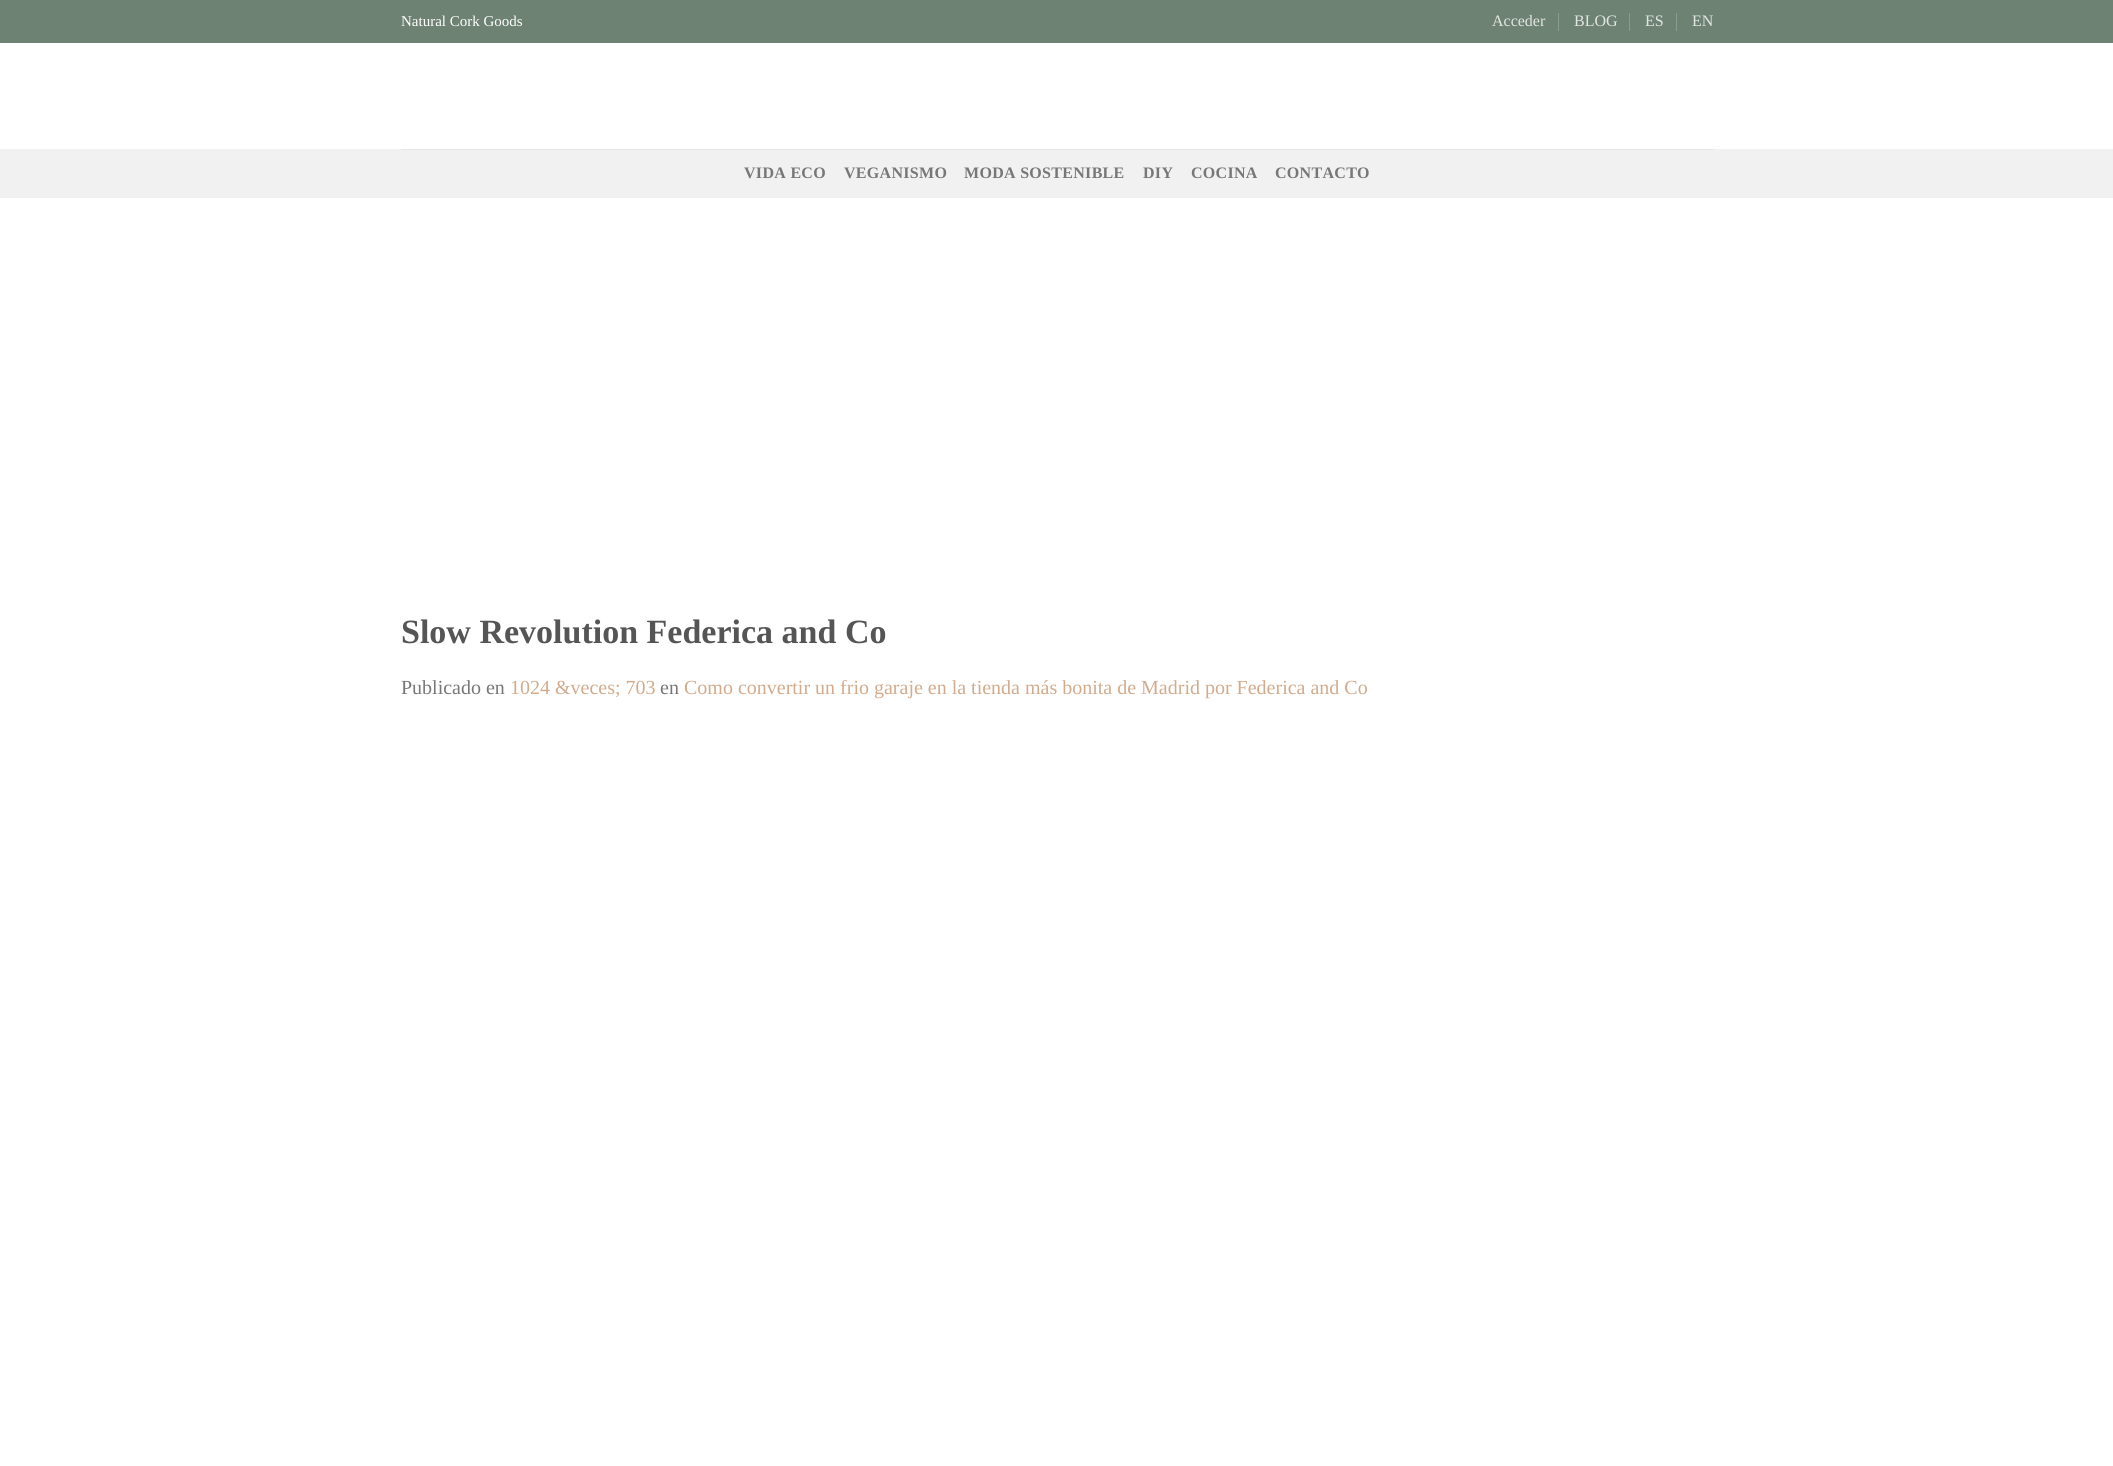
import math
import cairocffi as cairo

surface = cairo.ImageSurface(cairo.FORMAT_RGB24, 2113, 1466)
ctx = cairo.Context(surface)
options = cairo.FontOptions()
options.set_hint_metrics(cairo.HINT_METRICS_OFF)
options.set_hint_style(cairo.HINT_STYLE_NONE)
ctx.set_font_options(options)
ctx.set_miter_limit(4)


def rgb(r, g, b):
    ctx.set_source_rgb(r / 255, g / 255, b / 255)


def face(family, size, italic, bold):
    ctx.select_font_face(family, cairo.FONT_SLANT_ITALIC if italic else cairo.FONT_SLANT_NORMAL, cairo.FONT_WEIGHT_BOLD if bold else cairo.FONT_WEIGHT_NORMAL)
    ctx.set_font_size(size)


def label(x, y, s):
    ctx.move_to(x, y)
    ctx.show_text(s)


def tracked(x, y, s, letter, word):
    ctx.move_to(x, y)
    for ch in s:
        ctx.show_text(ch)
        ctx.rel_move_to(letter + word * (ch == ' '), 0)


def rect(x, y, w, h):
    ctx.rectangle(x, y, w, h)
    ctx.fill()


rgb(255, 255, 255)
ctx.paint()
rgb(109, 130, 115)
rect(0, 0, 2113, 43)
face('Liberation Serif', 15, 0, 0)
rgb(255, 255, 255)
label(401, 26, 'Natural Cork Goods')
face('Liberation Serif', 16, 0, 0)
rgb(226, 230, 227)
label(1492, 26, 'Acceder')
rgb(138, 155, 143)
rect(1558, 13, 1, 18)
rgb(226, 230, 227)
label(1574, 26, 'BLOG')
rgb(138, 155, 143)
rect(1629, 13, 1, 18)
rgb(226, 230, 227)
label(1645, 26, 'ES')
rgb(138, 155, 143)
rect(1676, 13, 1, 18)
rgb(226, 230, 227)
label(1692, 26, 'EN')
rgb(241, 241, 241)
rect(0, 149, 2113, 49)
rgb(229, 229, 229)
rect(401, 149, 1313, 1)
face('Liberation Serif', 16, 0, 1)
rgb(119, 119, 119)
tracked(744, 178, 'VIDA ECO', 0.3, 0)
tracked(844, 178, 'VEGANISMO', 0.3, 0)
tracked(964, 178, 'MODA SOSTENIBLE', 0.3, 0)
tracked(1143, 178, 'DIY', 0.3, 0)
tracked(1191, 178, 'COCINA', 0.3, 0)
tracked(1275, 178, 'CONTACTO', 0.3, 0)
face('Liberation Serif', 34, 0, 1)
rgb(85, 85, 85)
label(401, 643, 'Slow Revolution Federica and Co')
face('Liberation Serif', 20, 0, 0)
rgb(119, 119, 119)
label(401, 694, 'Publicado en')
rgb(210, 171, 140)
label(510, 694, '1024 &veces; 703')
rgb(119, 119, 119)
label(660, 694, 'en')
rgb(210, 171, 140)
label(684, 694, 'Como convertir un frio garaje en la tienda más bonita de Madrid por Federica and Co')
surface.write_to_png('render.png')
